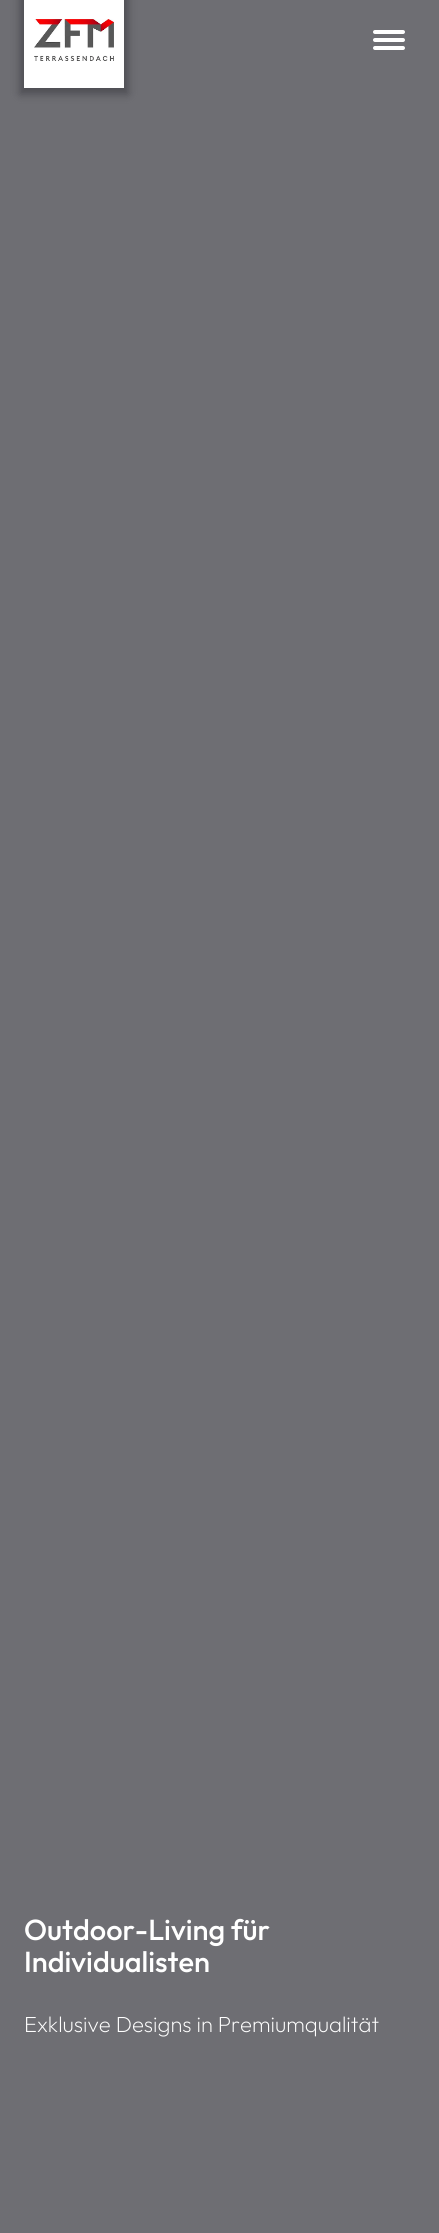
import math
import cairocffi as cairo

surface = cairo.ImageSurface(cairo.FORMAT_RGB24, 439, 2233)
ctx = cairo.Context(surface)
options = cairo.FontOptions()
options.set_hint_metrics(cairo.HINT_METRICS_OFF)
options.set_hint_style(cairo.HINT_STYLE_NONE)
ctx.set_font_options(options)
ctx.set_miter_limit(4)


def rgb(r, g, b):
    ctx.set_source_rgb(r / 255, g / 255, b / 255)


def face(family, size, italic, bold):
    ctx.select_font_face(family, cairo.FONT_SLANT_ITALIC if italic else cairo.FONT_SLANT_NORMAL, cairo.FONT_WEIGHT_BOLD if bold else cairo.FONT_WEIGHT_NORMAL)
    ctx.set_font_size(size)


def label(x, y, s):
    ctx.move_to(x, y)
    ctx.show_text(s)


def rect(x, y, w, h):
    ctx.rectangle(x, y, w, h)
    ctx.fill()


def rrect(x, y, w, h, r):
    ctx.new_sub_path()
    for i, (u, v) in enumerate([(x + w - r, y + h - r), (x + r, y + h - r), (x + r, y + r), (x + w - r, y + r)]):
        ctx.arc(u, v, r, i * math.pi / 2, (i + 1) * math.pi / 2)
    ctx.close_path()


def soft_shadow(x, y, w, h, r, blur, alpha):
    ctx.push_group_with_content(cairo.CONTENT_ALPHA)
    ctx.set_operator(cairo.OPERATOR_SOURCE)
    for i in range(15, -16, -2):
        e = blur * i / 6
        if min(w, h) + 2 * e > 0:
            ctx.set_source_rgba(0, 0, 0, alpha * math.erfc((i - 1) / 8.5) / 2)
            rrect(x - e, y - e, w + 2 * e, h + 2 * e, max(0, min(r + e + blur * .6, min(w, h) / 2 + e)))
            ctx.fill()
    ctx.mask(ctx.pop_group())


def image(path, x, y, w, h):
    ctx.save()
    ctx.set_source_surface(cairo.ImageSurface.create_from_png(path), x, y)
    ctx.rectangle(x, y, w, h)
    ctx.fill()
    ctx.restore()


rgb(110, 110, 115)
ctx.paint()
rgb(48, 48, 54)
soft_shadow(20, -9, 108, 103, 0, 4.5, 0.54)
rgb(255, 255, 255)
rect(24, 0, 100, 88)
image('image0.png', 34, 19, 80, 42)
rrect(373, 30, 32, 4, 2)
ctx.fill()
rrect(373, 38, 32, 4, 2)
ctx.fill()
rrect(373, 46, 32, 4, 2)
ctx.fill()
face('Outfit Medium', 29, 0, 0)
label(24, 1940, 'Outdoor-Living für')
label(24, 1972, 'Individualisten')
face('Outfit ExtraLight', 22, 0, 0)
label(24, 2032, 'Exklusive Designs in Premiumqualität')
surface.write_to_png('render.png')
